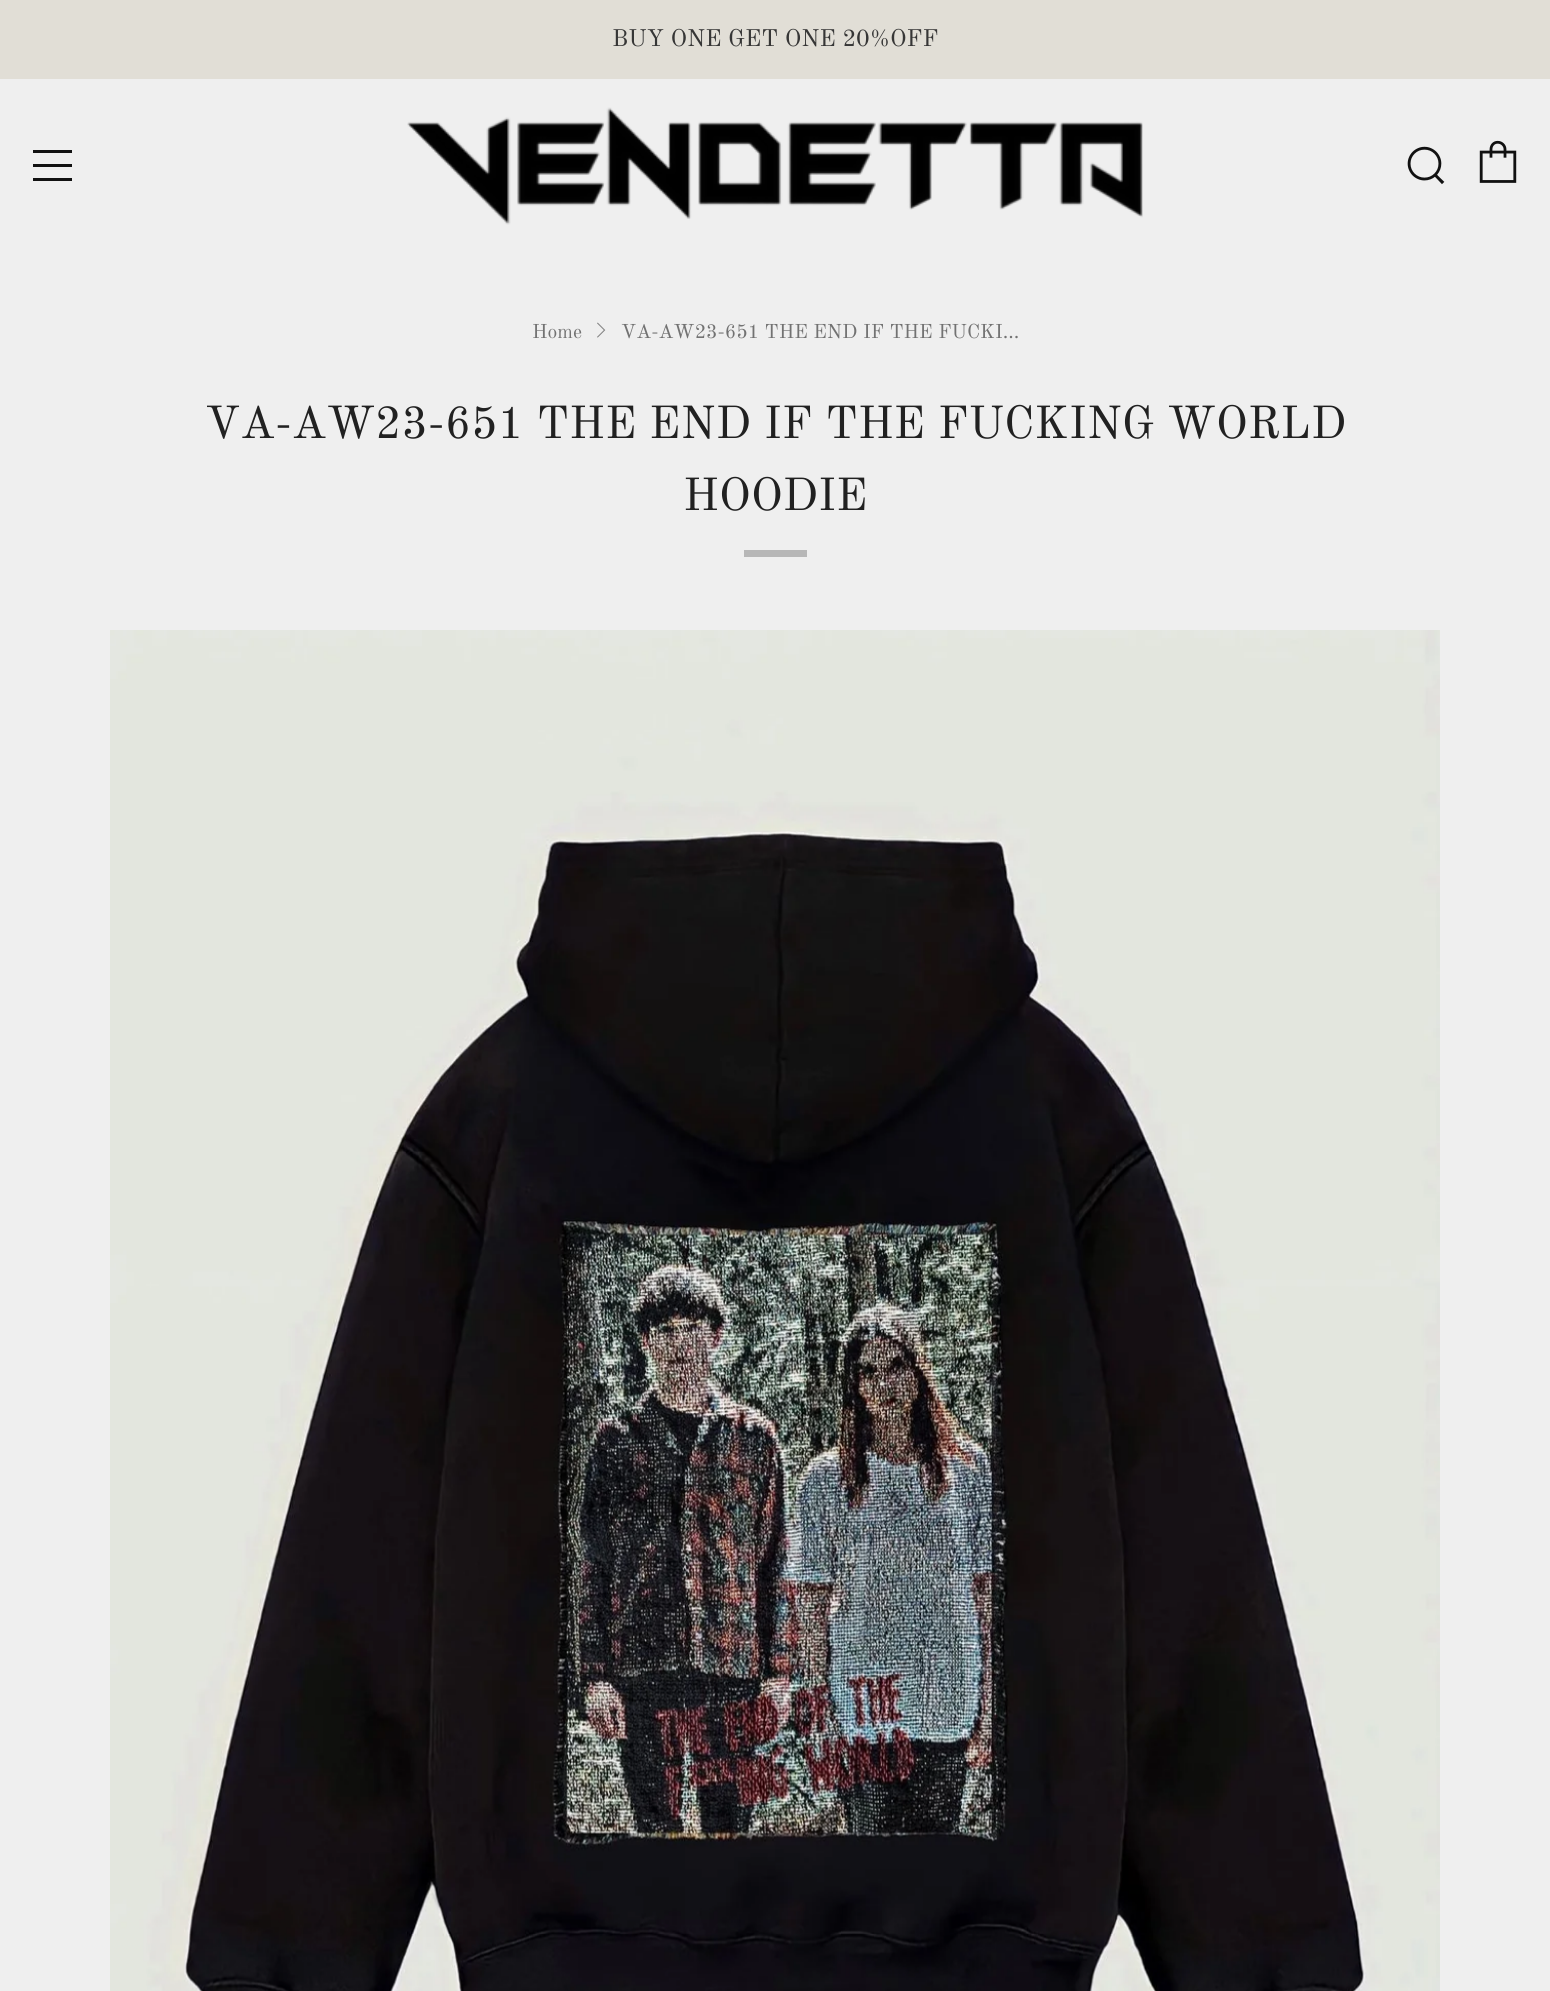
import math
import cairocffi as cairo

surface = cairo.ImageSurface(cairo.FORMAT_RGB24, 1550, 1991)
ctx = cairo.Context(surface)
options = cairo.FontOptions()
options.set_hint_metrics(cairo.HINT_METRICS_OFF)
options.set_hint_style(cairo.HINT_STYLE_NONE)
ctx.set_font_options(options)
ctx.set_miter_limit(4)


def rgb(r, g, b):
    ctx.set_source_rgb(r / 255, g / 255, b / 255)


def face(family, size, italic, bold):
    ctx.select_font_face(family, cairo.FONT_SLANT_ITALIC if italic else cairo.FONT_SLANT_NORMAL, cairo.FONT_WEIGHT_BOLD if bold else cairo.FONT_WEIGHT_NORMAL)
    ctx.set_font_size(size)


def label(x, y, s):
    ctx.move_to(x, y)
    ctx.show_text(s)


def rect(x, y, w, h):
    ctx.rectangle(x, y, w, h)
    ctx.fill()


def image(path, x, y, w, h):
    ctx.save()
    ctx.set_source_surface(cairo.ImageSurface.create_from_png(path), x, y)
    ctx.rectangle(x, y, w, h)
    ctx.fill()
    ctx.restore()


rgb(239, 239, 239)
ctx.paint()
rgb(225, 222, 214)
rect(0, 0, 1550, 79)
face('Old Standard TT', 23.6, 0, 0)
rgb(54, 54, 54)
label(612, 46, 'BUY ONE GET ONE 20%OFF')
rgb(17, 17, 17)
ctx.new_path()
ctx.move_to(33, 153)
ctx.line_to(72, 153)
ctx.line_to(72, 150)
ctx.line_to(33, 150)
ctx.close_path()
ctx.move_to(33, 181)
ctx.line_to(72, 181)
ctx.line_to(72, 178)
ctx.line_to(33, 178)
ctx.close_path()
ctx.move_to(33, 167)
ctx.line_to(72, 167)
ctx.line_to(72, 164)
ctx.line_to(33, 164)
ctx.close_path()
ctx.fill()
image('image0.png', 407, 107, 736, 118)
image('image1.png', 1407, 146, 38, 39)
image('image2.png', 1479, 140, 38, 43)
face('Old Standard TT', 19.7, 0, 0)
rgb(114, 114, 114)
label(532, 338, 'Home')
image('image3.png', 597, 322, 9, 16)
label(621, 338, 'VA-AW23-651 THE END IF THE FUCKI...')
face('Old Standard TT', 45.5, 0, 0)
rgb(33, 33, 33)
label(205, 438, 'VA-AW23-651 THE END IF THE FUCKING WORLD')
label(683, 510, 'HOODIE')
rgb(183, 183, 183)
rect(744, 550, 63, 7)
image('image4.png', 110, 630, 1330, 1361)
surface.write_to_png('render.png')
